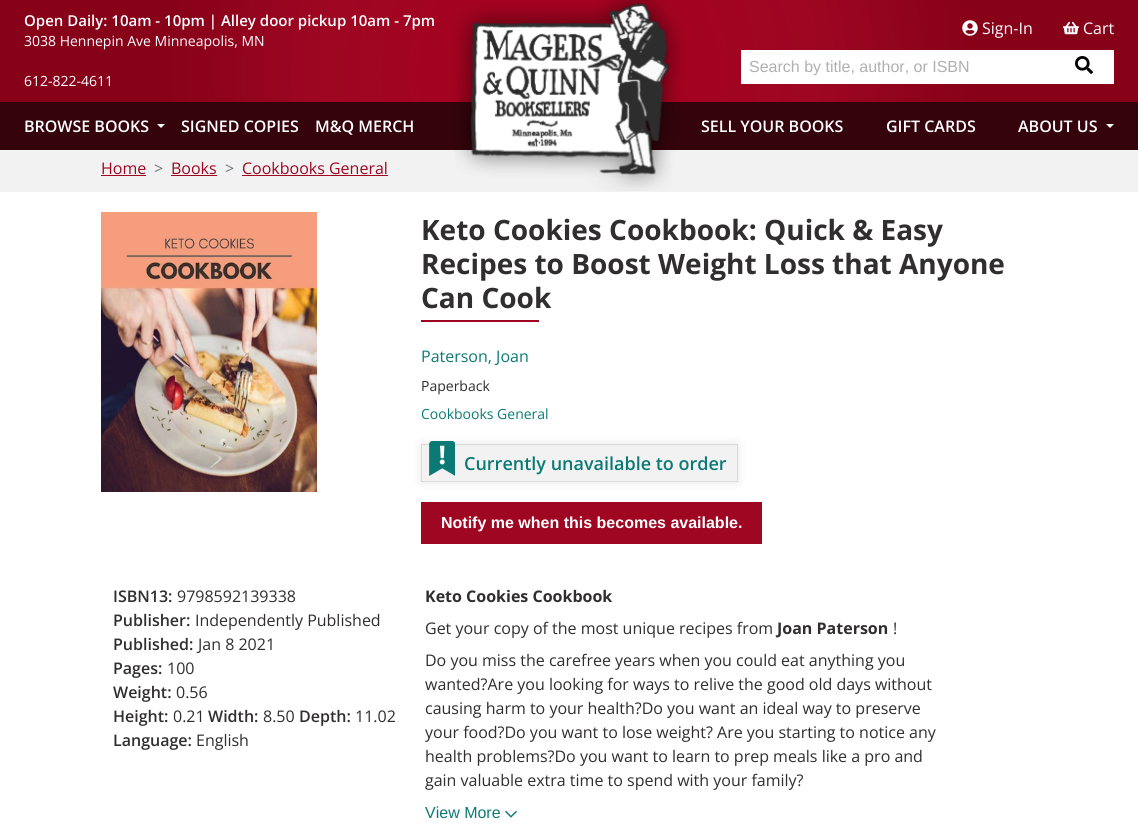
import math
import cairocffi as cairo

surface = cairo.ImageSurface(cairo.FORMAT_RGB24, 1138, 825)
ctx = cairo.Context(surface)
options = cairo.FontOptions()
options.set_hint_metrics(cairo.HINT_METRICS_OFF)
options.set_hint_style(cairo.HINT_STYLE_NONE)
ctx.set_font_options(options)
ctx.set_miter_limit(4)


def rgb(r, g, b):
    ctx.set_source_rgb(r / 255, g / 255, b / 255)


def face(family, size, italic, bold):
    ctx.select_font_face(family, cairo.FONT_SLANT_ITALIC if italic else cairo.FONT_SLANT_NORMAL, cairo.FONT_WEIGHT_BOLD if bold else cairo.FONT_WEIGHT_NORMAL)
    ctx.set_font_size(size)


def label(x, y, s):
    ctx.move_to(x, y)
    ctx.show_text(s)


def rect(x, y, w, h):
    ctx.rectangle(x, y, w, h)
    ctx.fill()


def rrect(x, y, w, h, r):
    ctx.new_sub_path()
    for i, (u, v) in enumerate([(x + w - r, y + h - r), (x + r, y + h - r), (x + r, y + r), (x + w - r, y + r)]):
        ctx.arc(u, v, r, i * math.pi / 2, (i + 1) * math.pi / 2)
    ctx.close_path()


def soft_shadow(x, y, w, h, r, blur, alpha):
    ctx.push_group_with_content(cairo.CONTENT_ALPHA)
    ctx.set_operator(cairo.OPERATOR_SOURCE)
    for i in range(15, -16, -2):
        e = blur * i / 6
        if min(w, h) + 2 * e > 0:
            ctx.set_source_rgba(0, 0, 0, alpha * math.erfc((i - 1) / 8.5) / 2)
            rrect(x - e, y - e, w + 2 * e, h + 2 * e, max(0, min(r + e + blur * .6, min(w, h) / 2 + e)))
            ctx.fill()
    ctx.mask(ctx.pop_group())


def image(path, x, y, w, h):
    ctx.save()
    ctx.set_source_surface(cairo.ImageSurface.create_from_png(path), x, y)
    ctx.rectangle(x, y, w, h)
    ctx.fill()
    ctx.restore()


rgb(255, 255, 255)
ctx.paint()
gradient = cairo.RadialGradient(569, 75, 0, 569, 75, 574)
gradient.add_color_stop_rgba(0.17, 0.643, 0.008, 0.125, 1)
gradient.add_color_stop_rgba(0.43, 0.62, 0.024, 0.133, 1)
gradient.add_color_stop_rgba(0.71, 0.529, 0.004, 0.098, 1)
gradient.add_color_stop_rgba(0.95, 0.529, 0.004, 0.098, 1)
ctx.set_source(gradient)
rect(0, 0, 1138, 102)
face('Open Sans SemiBold', 15, 0, 0)
rgb(255, 255, 255)
label(24, 26, 'Open Daily: 10am - 10pm | Alley door pickup 10am - 7pm')
face('Open Sans', 14, 0, 0)
label(24, 46, '3038 Hennepin Ave Minneapolis, MN')
label(24, 86, '612-822-4611')
rgb(52, 3, 12)
rect(0, 102, 1138, 48)
rgb(242, 242, 242)
rect(0, 150, 1138, 42)
image('image0.png', 454, 0, 230, 191)
image('image1.png', 962, 20, 16, 16)
face('Open Sans', 16, 0, 0)
rgb(255, 255, 255)
label(982, 34, 'Sign-In')
image('image2.png', 1063, 21, 16, 14)
label(1083, 34, 'Cart')
rect(741, 50, 373, 34)
face('Liberation Sans', 16, 0, 0)
rgb(176, 176, 176)
label(749, 72, 'Search by title, author, or ISBN')
image('image3.png', 1075, 56, 18, 18)
face('Open Sans SemiBold', 16, 0, 0)
rgb(255, 255, 255)
label(24, 132, 'BROWSE BOOKS')
ctx.new_path()
ctx.move_to(157, 124)
ctx.line_to(165, 124)
ctx.line_to(161, 128)
ctx.close_path()
ctx.fill()
label(181, 132, 'SIGNED COPIES')
label(315, 132, 'M&Q MERCH')
label(701, 132, 'SELL YOUR BOOKS')
label(886, 132, 'GIFT CARDS')
label(1018, 132, 'ABOUT US')
ctx.new_path()
ctx.move_to(1106, 124)
ctx.line_to(1114, 124)
ctx.line_to(1110, 128)
ctx.close_path()
ctx.fill()
face('Open Sans', 16, 0, 0)
rgb(158, 6, 34)
label(101, 174, 'Home')
rect(101, 175, 45, 1)
rgb(108, 117, 125)
label(154, 174, '>')
rgb(158, 6, 34)
label(171, 174, 'Books')
rect(171, 175, 46, 1)
rgb(108, 117, 125)
label(225, 174, '>')
rgb(158, 6, 34)
label(242, 174, 'Cookbooks General')
rect(242, 175, 146, 1)
image('image4.png', 101, 212, 216, 280)
face('Open Sans', 28, 0, 1)
rgb(48, 46, 47)
label(421, 240, 'Keto Cookies Cookbook: Quick & Easy')
label(421, 274, 'Recipes to Boost Weight Loss that Anyone')
label(421, 308, 'Can Cook')
rgb(158, 6, 34)
rect(421, 320, 118, 2)
face('Open Sans', 16, 0, 0)
rgb(11, 122, 117)
label(421, 362, 'Paterson, Joan')
face('Open Sans', 14, 0, 0)
rgb(48, 46, 47)
label(421, 391, 'Paperback')
rgb(11, 122, 117)
label(421, 419, 'Cookbooks General')
rgb(0, 0, 0)
soft_shadow(421, 444, 317, 38, 0, 5, 0.1)
rgb(242, 242, 242)
ctx.rectangle(421.5, 444.5, 316, 37)
ctx.fill_preserve()
rgb(218, 218, 218)
ctx.set_line_width(1)
ctx.stroke()
image('image5.png', 429, 441, 26, 35)
face('Open Sans SemiBold', 18, 0, 0)
rgb(11, 122, 117)
label(464, 470, 'Currently unavailable to order')
rgb(158, 6, 34)
rect(421, 502, 341, 42)
face('Liberation Sans', 16, 0, 1)
rgb(255, 255, 255)
label(441, 528, 'Notify me when this becomes available.')
face('Open Sans SemiBold', 16, 0, 0)
rgb(48, 46, 47)
label(113, 602, 'ISBN13:')
face('Open Sans', 16, 0, 0)
label(177, 602, '9798592139338')
face('Open Sans SemiBold', 16, 0, 0)
label(113, 626, 'Publisher:')
face('Open Sans', 16, 0, 0)
label(195, 626, 'Independently Published')
face('Open Sans SemiBold', 16, 0, 0)
label(113, 650, 'Published:')
face('Open Sans', 16, 0, 0)
label(198, 650, 'Jan 8 2021')
face('Open Sans SemiBold', 16, 0, 0)
label(113, 674, 'Pages:')
face('Open Sans', 16, 0, 0)
label(167, 674, '100')
face('Open Sans SemiBold', 16, 0, 0)
label(113, 698, 'Weight:')
face('Open Sans', 16, 0, 0)
label(176, 698, '0.56')
face('Open Sans SemiBold', 16, 0, 0)
label(113, 722, 'Height:')
face('Open Sans', 16, 0, 0)
label(173, 722, '0.21')
face('Open Sans SemiBold', 16, 0, 0)
label(208, 722, 'Width:')
face('Open Sans', 16, 0, 0)
label(263, 722, '8.50')
face('Open Sans SemiBold', 16, 0, 0)
label(299, 722, 'Depth:')
face('Open Sans', 16, 0, 0)
label(355, 722, '11.02')
face('Open Sans SemiBold', 16, 0, 0)
label(113, 746, 'Language:')
face('Open Sans', 16, 0, 0)
label(196, 746, 'English')
face('Open Sans', 16, 0, 1)
label(425, 602, 'Keto Cookies Cookbook')
face('Open Sans', 16, 0, 0)
label(425, 634, 'Get your copy of the most unique recipes from')
face('Open Sans', 16, 0, 1)
label(777, 634, 'Joan Paterson')
face('Open Sans', 16, 0, 0)
label(893, 634, '!')
label(425, 666, 'Do you miss the carefree years when you could eat anything you')
label(425, 690, 'wanted?Are you looking for ways to relive the good old days without')
label(425, 714, 'causing harm to your health?Do you want an ideal way to preserve')
label(425, 738, 'your food?Do you want to lose weight? Are you starting to notice any')
label(425, 762, 'health problems?Do you want to learn to prep meals like a pro and')
label(425, 786, 'gain valuable extra time to spend with your family?')
face('Liberation Sans', 16, 0, 0)
rgb(11, 122, 117)
label(425, 818, 'View More')
image('image6.png', 505, 810, 12, 8)
surface.write_to_png('render.png')
